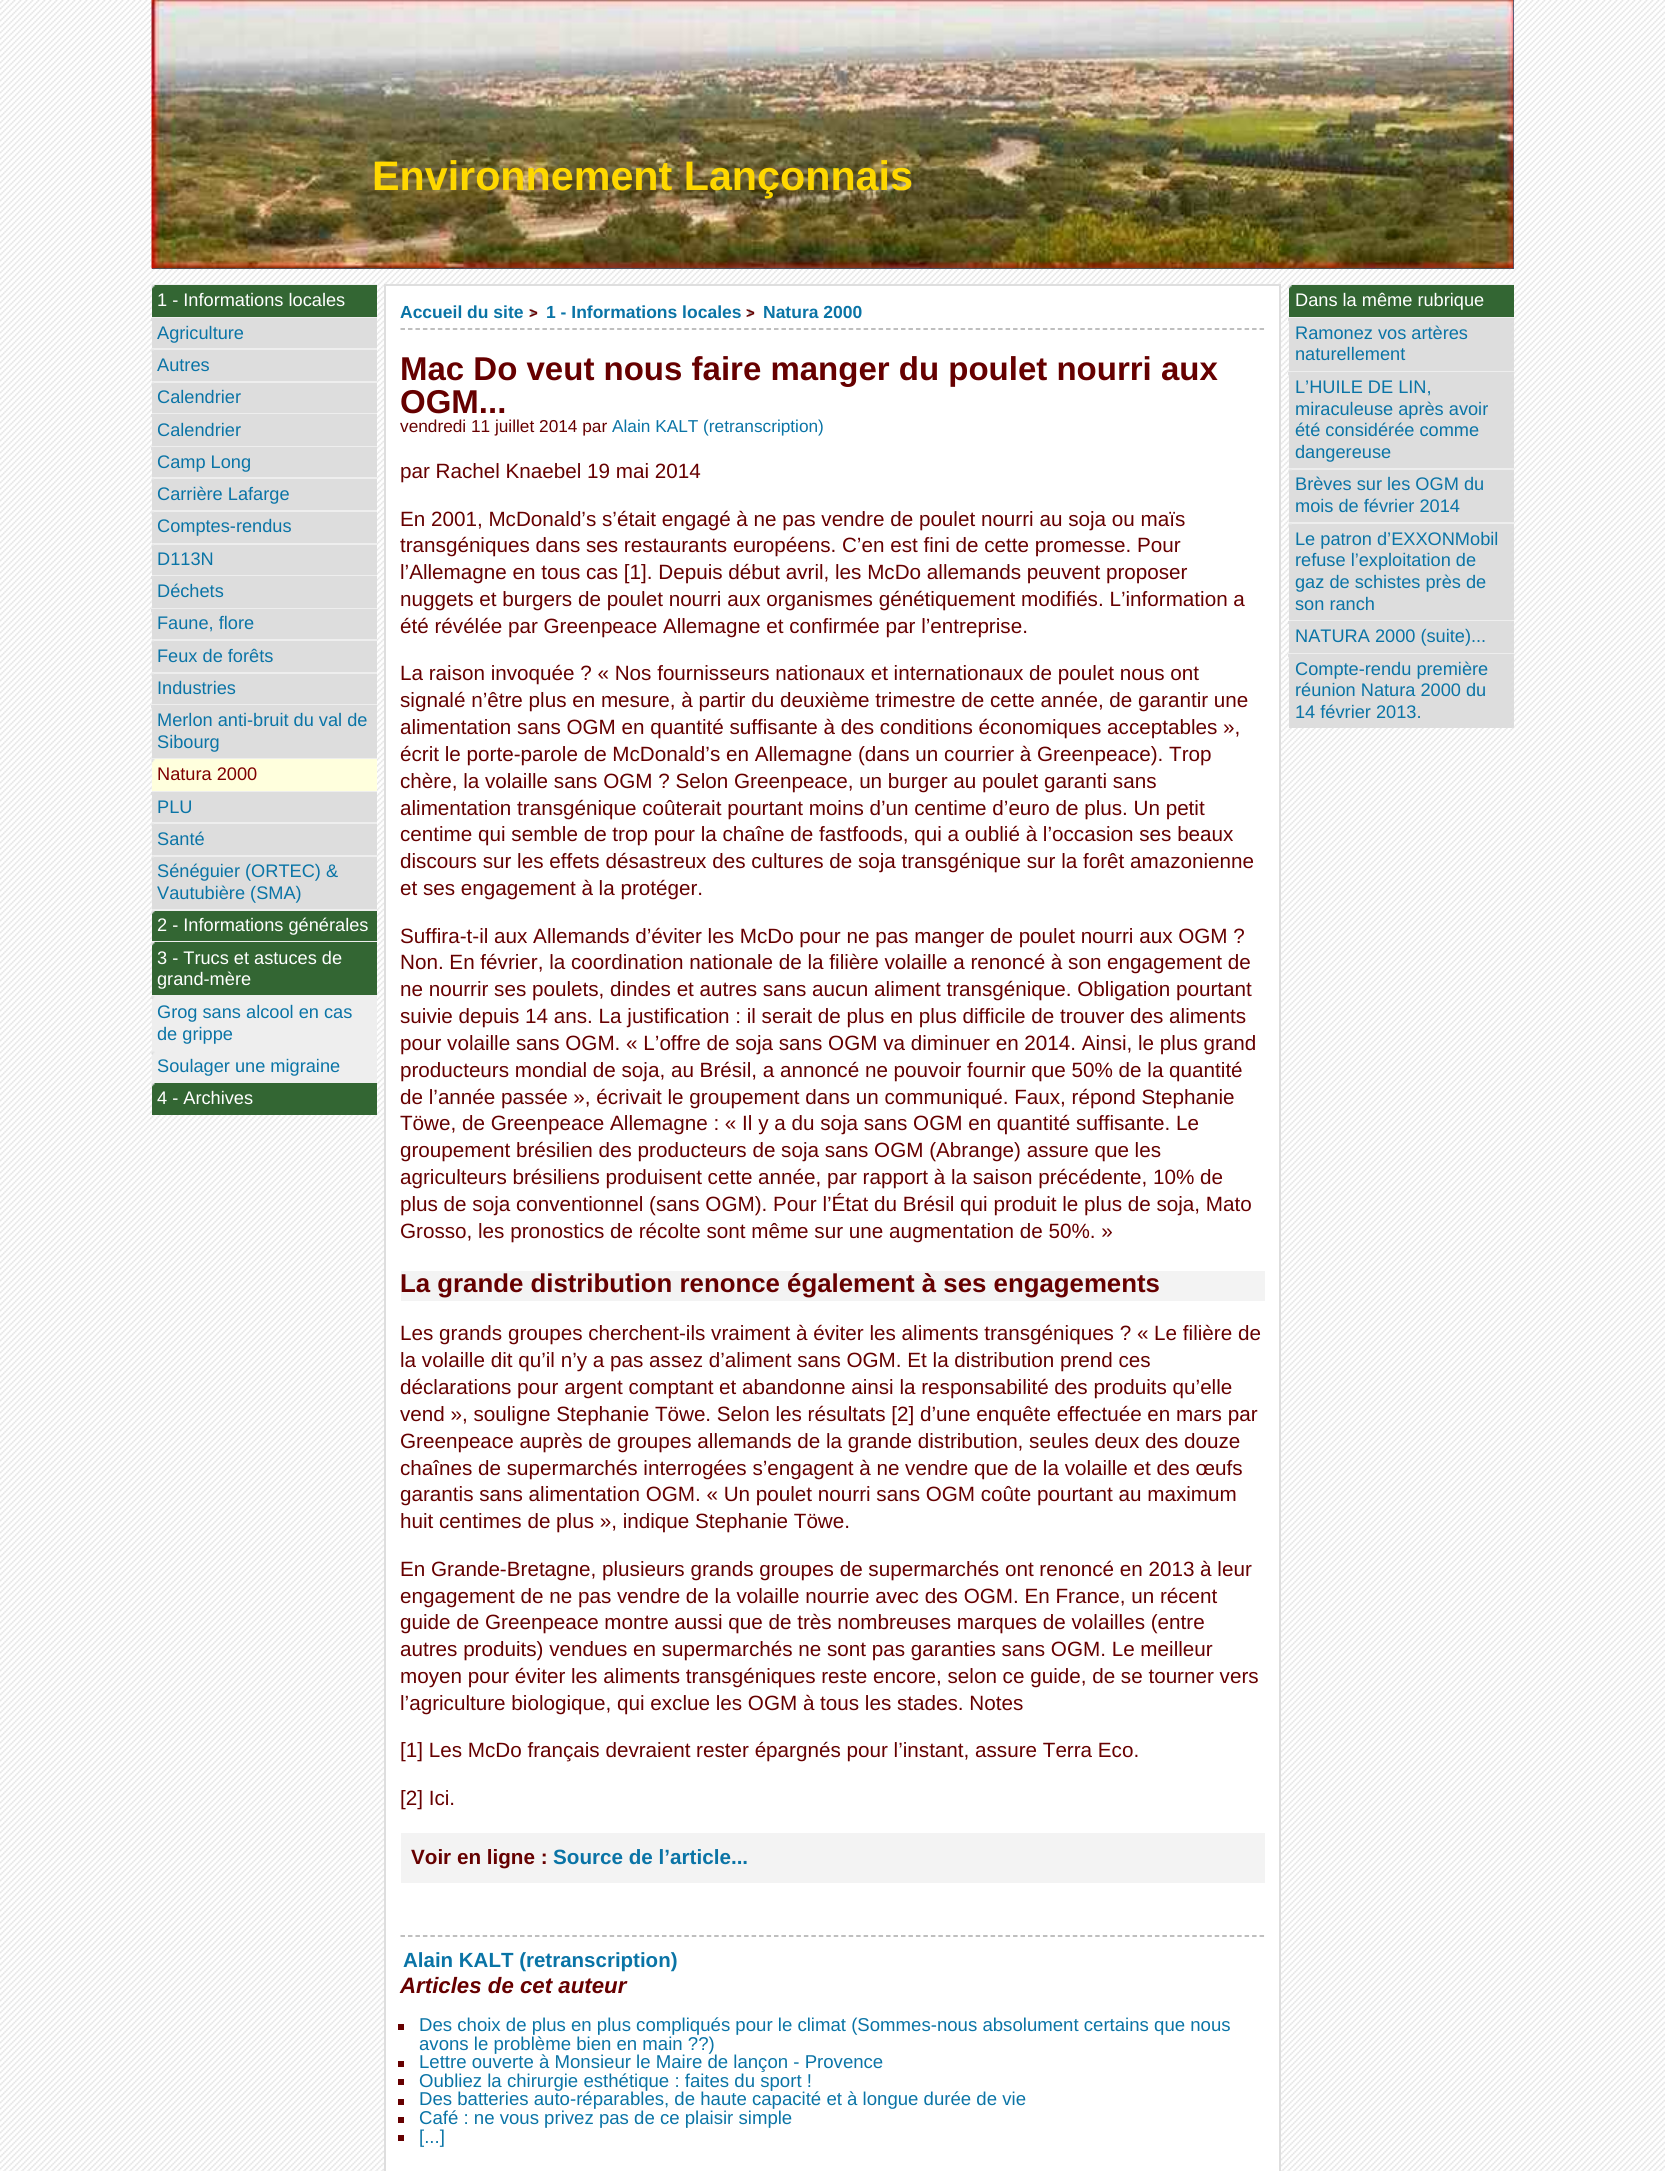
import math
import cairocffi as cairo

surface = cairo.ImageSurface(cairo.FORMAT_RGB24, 1665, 2171)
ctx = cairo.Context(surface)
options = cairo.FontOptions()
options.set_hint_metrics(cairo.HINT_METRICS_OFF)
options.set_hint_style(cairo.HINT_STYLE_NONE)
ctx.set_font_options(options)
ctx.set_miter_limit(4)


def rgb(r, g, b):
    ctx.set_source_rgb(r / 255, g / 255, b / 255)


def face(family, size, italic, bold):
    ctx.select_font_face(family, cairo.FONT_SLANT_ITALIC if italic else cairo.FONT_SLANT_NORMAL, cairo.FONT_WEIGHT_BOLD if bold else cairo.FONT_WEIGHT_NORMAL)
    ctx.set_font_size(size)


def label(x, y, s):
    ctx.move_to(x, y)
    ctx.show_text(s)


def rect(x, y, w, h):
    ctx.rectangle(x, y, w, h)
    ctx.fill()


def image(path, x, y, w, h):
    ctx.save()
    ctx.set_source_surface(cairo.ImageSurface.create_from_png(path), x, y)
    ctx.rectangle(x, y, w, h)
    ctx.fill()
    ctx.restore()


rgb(221, 221, 221)
ctx.paint()
image('image0.png', 0, 0, 1665, 2171)
rgb(10, 116, 166)
rect(152, 0, 1362, 269)
image('image1.png', 151, 0, 1363, 269)
face('Liberation Sans', 41.25, 0, 1)
rgb(255, 216, 0)
label(372, 190, 'Environnement Lançonnais')
rgb(238, 238, 238)
rect(152, 284, 225, 1)
rgb(51, 102, 51)
rect(152, 285, 225, 32)
image('image2.png', 151, 285, 4, 4)
face('Liberation Sans', 18.2, 0, 0)
rgb(255, 255, 255)
label(157, 306, '1 - Informations locales')
rgb(238, 238, 238)
rect(152, 317, 225, 1)
rgb(221, 221, 221)
rect(152, 318, 225, 30)
ctx.set_source_rgba(0.871, 0.871, 0.875, 0.94)
rect(151, 318, 3, 3)
rgb(10, 116, 166)
label(157, 339, 'Agriculture')
rgb(238, 238, 238)
rect(152, 348, 225, 2)
rgb(221, 221, 221)
rect(152, 350, 225, 31)
image('image3.png', 151, 349, 3, 4)
rgb(10, 116, 166)
label(157, 371, 'Autres')
rgb(238, 238, 238)
rect(152, 381, 225, 2)
rgb(221, 221, 221)
rect(152, 383, 225, 30)
image('image4.png', 151, 382, 3, 4)
rgb(10, 116, 166)
label(157, 403, 'Calendrier')
rgb(238, 238, 238)
rect(152, 413, 225, 1)
rgb(221, 221, 221)
rect(152, 414, 225, 32)
ctx.set_source_rgba(0.871, 0.871, 0.875, 0.94)
rect(151, 414, 3, 3)
rgb(10, 116, 166)
label(157, 436, 'Calendrier')
rgb(238, 238, 238)
rect(152, 446, 225, 1)
rgb(221, 221, 221)
rect(152, 447, 225, 30)
ctx.set_source_rgba(0.871, 0.871, 0.875, 0.94)
rect(151, 447, 3, 3)
rgb(10, 116, 166)
label(157, 468, 'Camp Long')
rgb(238, 238, 238)
rect(152, 477, 225, 2)
rgb(221, 221, 221)
rect(152, 479, 225, 31)
image('image4.png', 151, 478, 3, 4)
rgb(10, 116, 166)
label(157, 500, 'Carrière Lafarge')
rgb(238, 238, 238)
rect(152, 510, 225, 2)
rgb(221, 221, 221)
rect(152, 512, 225, 31)
image('image3.png', 151, 511, 3, 4)
rgb(10, 116, 166)
label(157, 532, 'Comptes-rendus')
rgb(238, 238, 238)
rect(152, 543, 225, 2)
rgb(221, 221, 221)
rect(152, 545, 225, 30)
image('image4.png', 151, 544, 3, 4)
rgb(10, 116, 166)
label(157, 565, 'D113N')
rgb(238, 238, 238)
rect(152, 575, 225, 1)
rgb(221, 221, 221)
rect(152, 576, 225, 32)
ctx.set_source_rgba(0.871, 0.871, 0.875, 0.94)
rect(151, 576, 3, 3)
rgb(10, 116, 166)
label(157, 597, 'Déchets')
rgb(238, 238, 238)
rect(152, 608, 225, 1)
rgb(221, 221, 221)
rect(152, 609, 225, 30)
ctx.set_source_rgba(0.871, 0.871, 0.875, 0.94)
rect(151, 609, 3, 3)
rgb(10, 116, 166)
label(157, 629, 'Faune, flore')
rgb(238, 238, 238)
rect(152, 639, 225, 2)
rgb(221, 221, 221)
rect(152, 641, 225, 31)
image('image4.png', 151, 640, 3, 4)
rgb(10, 116, 166)
label(157, 662, 'Feux de forêts')
rgb(238, 238, 238)
rect(152, 672, 225, 2)
rgb(221, 221, 221)
rect(152, 674, 225, 30)
image('image3.png', 151, 673, 3, 4)
rgb(10, 116, 166)
label(157, 694, 'Industries')
rgb(238, 238, 238)
rect(152, 704, 225, 1)
rgb(221, 221, 221)
rect(152, 705, 225, 53)
ctx.set_source_rgba(0.871, 0.871, 0.875, 0.94)
rect(151, 705, 3, 3)
rgb(10, 116, 166)
label(157, 726, 'Merlon anti-bruit du val de')
label(157, 748, 'Sibourg')
rgb(238, 238, 238)
rect(152, 758, 225, 1)
rgb(255, 255, 221)
rect(152, 759, 225, 32)
image('image5.png', 151, 759, 4, 4)
rgb(128, 0, 0)
label(157, 780, 'Natura 2000')
rgb(238, 238, 238)
rect(152, 791, 225, 1)
rgb(221, 221, 221)
rect(152, 792, 225, 30)
ctx.set_source_rgba(0.871, 0.871, 0.875, 0.94)
rect(151, 792, 3, 3)
rgb(10, 116, 166)
label(157, 813, 'PLU')
rgb(238, 238, 238)
rect(152, 822, 225, 2)
rgb(221, 221, 221)
rect(152, 824, 225, 31)
image('image3.png', 151, 823, 3, 4)
rgb(10, 116, 166)
label(157, 845, 'Santé')
rgb(238, 238, 238)
rect(152, 855, 225, 2)
rgb(221, 221, 221)
rect(152, 857, 225, 52)
image('image4.png', 151, 856, 3, 4)
rgb(10, 116, 166)
label(157, 877, 'Sénéguier (ORTEC) &')
label(157, 899, 'Vautubière (SMA)')
rgb(238, 238, 238)
rect(152, 909, 225, 2)
rgb(51, 102, 51)
rect(152, 911, 225, 30)
image('image6.png', 151, 910, 4, 4)
rgb(255, 255, 255)
label(157, 931, '2 - Informations générales')
rgb(238, 238, 238)
rect(152, 941, 225, 1)
rgb(51, 102, 51)
rect(152, 942, 225, 53)
image('image7.png', 151, 942, 4, 4)
rgb(255, 255, 255)
label(157, 964, '3 - Trucs et astuces de')
label(157, 985, 'grand-mère')
rgb(238, 238, 238)
rect(152, 995, 225, 88)
image('image8.png', 151, 996, 4, 3)
rgb(10, 116, 166)
label(157, 1018, 'Grog sans alcool en cas')
label(157, 1040, 'de grippe')
image('image9.png', 151, 1051, 4, 4)
label(157, 1072, 'Soulager une migraine')
rgb(51, 102, 51)
rect(152, 1083, 225, 32)
image('image2.png', 151, 1083, 4, 4)
rgb(255, 255, 255)
label(157, 1104, '4 - Archives')
ctx.rectangle(385, 285, 895, 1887)
ctx.fill_preserve()
rgb(222, 222, 222)
ctx.stroke()
face('Liberation Sans', 17.5, 0, 1)
rgb(10, 116, 166)
label(400, 318, 'Accueil du site')
image('image10.png', 530, 308, 6, 9)
label(546, 318, '1 - Informations locales')
image('image11.png', 748, 308, 6, 9)
label(763, 318, 'Natura 2000')
face('Liberation Sans', 15, 0, 1)
rgb(102, 0, 0)
label(529, 318, '>')
label(746, 318, '>')
ctx.new_path()
ctx.move_to(400.5, 329)
ctx.line_to(1264.5, 329)
rgb(170, 170, 170)
ctx.set_line_width(1.5)
ctx.set_dash([4.5, 2.97])
ctx.stroke()
face('Liberation Sans', 33, 0, 1)
rgb(102, 0, 0)
label(400, 380, 'Mac Do veut nous faire manger du poulet nourri aux')
label(400, 413, 'OGM...')
face('Liberation Sans', 17.25, 0, 0)
label(400, 432, 'vendredi 11 juillet 2014 par')
rgb(10, 116, 166)
label(612, 432, 'Alain KALT (retranscription)')
face('Liberation Sans', 20.65, 0, 0)
rgb(102, 0, 0)
label(400, 478, 'par Rachel Knaebel 19 mai 2014')
label(400, 526, 'En 2001, McDonald’s s’était engagé à ne pas vendre de poulet nourri au soja ou maïs')
label(400, 552, 'transgéniques dans ses restaurants européens. C’en est fini de cette promesse. Pour')
label(400, 579, 'l’Allemagne en tous cas [1]. Depuis début avril, les McDo allemands peuvent proposer')
label(400, 606, 'nuggets et burgers de poulet nourri aux organismes génétiquement modifiés. L’information a')
label(400, 633, 'été révélée par Greenpeace Allemagne et confirmée par l’entreprise.')
label(400, 680, 'La raison invoquée ? « Nos fournisseurs nationaux et internationaux de poulet nous ont')
label(400, 707, 'signalé n’être plus en mesure, à partir du deuxième trimestre de cette année, de garantir une')
label(400, 734, 'alimentation sans OGM en quantité suffisante à des conditions économiques acceptables »,')
label(400, 761, 'écrit le porte-parole de McDonald’s en Allemagne (dans un courrier à Greenpeace). Trop')
label(400, 788, 'chère, la volaille sans OGM ? Selon Greenpeace, un burger au poulet garanti sans')
label(400, 815, 'alimentation transgénique coûterait pourtant moins d’un centime d’euro de plus. Un petit')
label(400, 841, 'centime qui semble de trop pour la chaîne de fastfoods, qui a oublié à l’occasion ses beaux')
label(400, 868, 'discours sur les effets désastreux des cultures de soja transgénique sur la forêt amazonienne')
label(400, 895, 'et ses engagement à la protéger.')
label(400, 943, 'Suffira-t-il aux Allemands d’éviter les McDo pour ne pas manger de poulet nourri aux OGM ?')
label(400, 969, 'Non. En février, la coordination nationale de la filière volaille a renoncé à son engagement de')
label(400, 996, 'ne nourrir ses poulets, dindes et autres sans aucun aliment transgénique. Obligation pourtant')
label(400, 1023, 'suivie depuis 14 ans. La justification : il serait de plus en plus difficile de trouver des aliments')
label(400, 1050, 'pour volaille sans OGM. « L’offre de soja sans OGM va diminuer en 2014. Ainsi, le plus grand')
label(400, 1077, 'producteurs mondial de soja, au Brésil, a annoncé ne pouvoir fournir que 50% de la quantité')
label(400, 1104, 'de l’année passée », écrivait le groupement dans un communiqué. Faux, répond Stephanie')
label(400, 1130, 'Töwe, de Greenpeace Allemagne : « Il y a du soja sans OGM en quantité suffisante. Le')
label(400, 1157, 'groupement brésilien des producteurs de soja sans OGM (Abrange) assure que les')
label(400, 1184, 'agriculteurs brésiliens produisent cette année, par rapport à la saison précédente, 10% de')
label(400, 1211, 'plus de soja conventionnel (sans OGM). Pour l’État du Brésil qui produit le plus de soja, Mato')
label(400, 1238, 'Grosso, les pronostics de récolte sont même sur une augmentation de 50%. »')
rgb(243, 243, 243)
rect(401, 1271, 864, 30)
face('Liberation Sans', 25.8, 0, 1)
rgb(102, 0, 0)
label(400, 1292, 'La grande distribution renonce également à ses engagements')
face('Liberation Sans', 20.65, 0, 0)
label(400, 1340, 'Les grands groupes cherchent-ils vraiment à éviter les aliments transgéniques ? « Le filière de')
label(400, 1367, 'la volaille dit qu’il n’y a pas assez d’aliment sans OGM. Et la distribution prend ces')
label(400, 1394, 'déclarations pour argent comptant et abandonne ainsi la responsabilité des produits qu’elle')
label(400, 1421, 'vend », souligne Stephanie Töwe. Selon les résultats [2] d’une enquête effectuée en mars par')
label(400, 1448, 'Greenpeace auprès de groupes allemands de la grande distribution, seules deux des douze')
label(400, 1475, 'chaînes de supermarchés interrogées s’engagent à ne vendre que de la volaille et des œufs')
label(400, 1501, 'garantis sans alimentation OGM. « Un poulet nourri sans OGM coûte pourtant au maximum')
label(400, 1528, 'huit centimes de plus », indique Stephanie Töwe.')
label(400, 1576, 'En Grande-Bretagne, plusieurs grands groupes de supermarchés ont renoncé en 2013 à leur')
label(400, 1603, 'engagement de ne pas vendre de la volaille nourrie avec des OGM. En France, un récent')
label(400, 1629, 'guide de Greenpeace montre aussi que de très nombreuses marques de volailles (entre')
label(400, 1656, 'autres produits) vendues en supermarchés ne sont pas garanties sans OGM. Le meilleur')
label(400, 1683, 'moyen pour éviter les aliments transgéniques reste encore, selon ce guide, de se tourner vers')
label(400, 1710, 'l’agriculture biologique, qui exclue les OGM à tous les stades. Notes')
label(400, 1757, '[1] Les McDo français devraient rester épargnés pour l’instant, assure Terra Eco.')
label(400, 1805, '[2] Ici.')
rgb(243, 243, 243)
rect(401, 1833, 864, 50)
face('Liberation Sans', 20.65, 0, 1)
rgb(102, 0, 0)
label(411, 1864, 'Voir en ligne :')
rgb(10, 116, 166)
label(553, 1864, 'Source de l’article...')
ctx.new_path()
ctx.move_to(400.5, 1936)
ctx.line_to(1264.5, 1936)
rgb(170, 170, 170)
ctx.stroke()
face('Liberation Sans', 20.5, 0, 1)
rgb(10, 116, 166)
label(403, 1967, 'Alain KALT (retranscription)')
face('Liberation Sans', 22.25, 1, 1)
rgb(102, 0, 0)
label(400, 1993, 'Articles de cet auteur')
rect(398, 2024, 6, 6)
face('Liberation Sans', 18.6, 0, 0)
rgb(10, 116, 166)
label(419, 2031, 'Des choix de plus en plus compliqués pour le climat (Sommes-nous absolument certains que nous')
label(419, 2050, 'avons le problème bien en main ??)')
rgb(102, 0, 0)
rect(398, 2061, 6, 6)
rgb(10, 116, 166)
label(419, 2068, 'Lettre ouverte à Monsieur le Maire de lançon - Provence')
rgb(102, 0, 0)
rect(398, 2079, 6, 6)
rgb(10, 116, 166)
label(419, 2087, 'Oubliez la chirurgie esthétique : faites du sport !')
rgb(102, 0, 0)
rect(398, 2099, 6, 6)
rgb(10, 116, 166)
label(419, 2105, 'Des batteries auto-réparables, de haute capacité et à longue durée de vie')
rgb(102, 0, 0)
rect(398, 2117, 6, 6)
rgb(10, 116, 166)
label(419, 2124, 'Café : ne vous privez pas de ce plaisir simple')
rgb(102, 0, 0)
rect(398, 2135, 6, 6)
rgb(10, 116, 166)
label(419, 2143, '[...]')
rgb(238, 238, 238)
rect(1289, 284, 225, 1)
rgb(51, 102, 51)
rect(1289, 285, 225, 32)
image('image12.png', 1288, 285, 4, 4)
face('Liberation Sans', 18.2, 0, 0)
rgb(255, 255, 255)
label(1295, 306, 'Dans la même rubrique')
rgb(238, 238, 238)
rect(1289, 317, 225, 1)
rgb(221, 221, 221)
rect(1289, 318, 225, 53)
ctx.set_source_rgba(0.871, 0.871, 0.875, 0.94)
rect(1288, 318, 3, 3)
rgb(10, 116, 166)
label(1295, 339, 'Ramonez vos artères')
label(1295, 360, 'naturellement')
rgb(238, 238, 238)
rect(1289, 371, 225, 1)
rgb(221, 221, 221)
rect(1289, 372, 225, 96)
ctx.set_source_rgba(0.871, 0.871, 0.875, 0.94)
rect(1288, 372, 3, 3)
rgb(10, 116, 166)
label(1295, 393, 'L’HUILE DE LIN,')
label(1295, 415, 'miraculeuse après avoir')
label(1295, 436, 'été considérée comme')
label(1295, 458, 'dangereuse')
rgb(238, 238, 238)
rect(1289, 468, 225, 2)
rgb(221, 221, 221)
rect(1289, 470, 225, 52)
image('image13.png', 1288, 469, 4, 4)
rgb(10, 116, 166)
label(1295, 490, 'Brèves sur les OGM du')
label(1295, 512, 'mois de février 2014')
rgb(238, 238, 238)
rect(1289, 522, 225, 2)
rgb(221, 221, 221)
rect(1289, 524, 225, 96)
image('image13.png', 1288, 523, 4, 4)
rgb(10, 116, 166)
label(1295, 545, 'Le patron d’EXXONMobil')
label(1295, 566, 'refuse l’exploitation de')
label(1295, 588, 'gaz de schistes près de')
label(1295, 610, 'son ranch')
rgb(238, 238, 238)
rect(1289, 620, 225, 1)
rgb(221, 221, 221)
rect(1289, 621, 225, 32)
ctx.set_source_rgba(0.871, 0.871, 0.875, 0.94)
rect(1288, 621, 3, 3)
rgb(10, 116, 166)
label(1295, 642, 'NATURA 2000 (suite)...')
rgb(238, 238, 238)
rect(1289, 653, 225, 1)
rgb(221, 221, 221)
rect(1289, 654, 225, 74)
ctx.set_source_rgba(0.871, 0.871, 0.875, 0.94)
rect(1288, 654, 3, 3)
rgb(10, 116, 166)
label(1295, 675, 'Compte-rendu première')
label(1295, 696, 'réunion Natura 2000 du')
label(1295, 718, '14 février 2013.')
surface.write_to_png('render.png')
